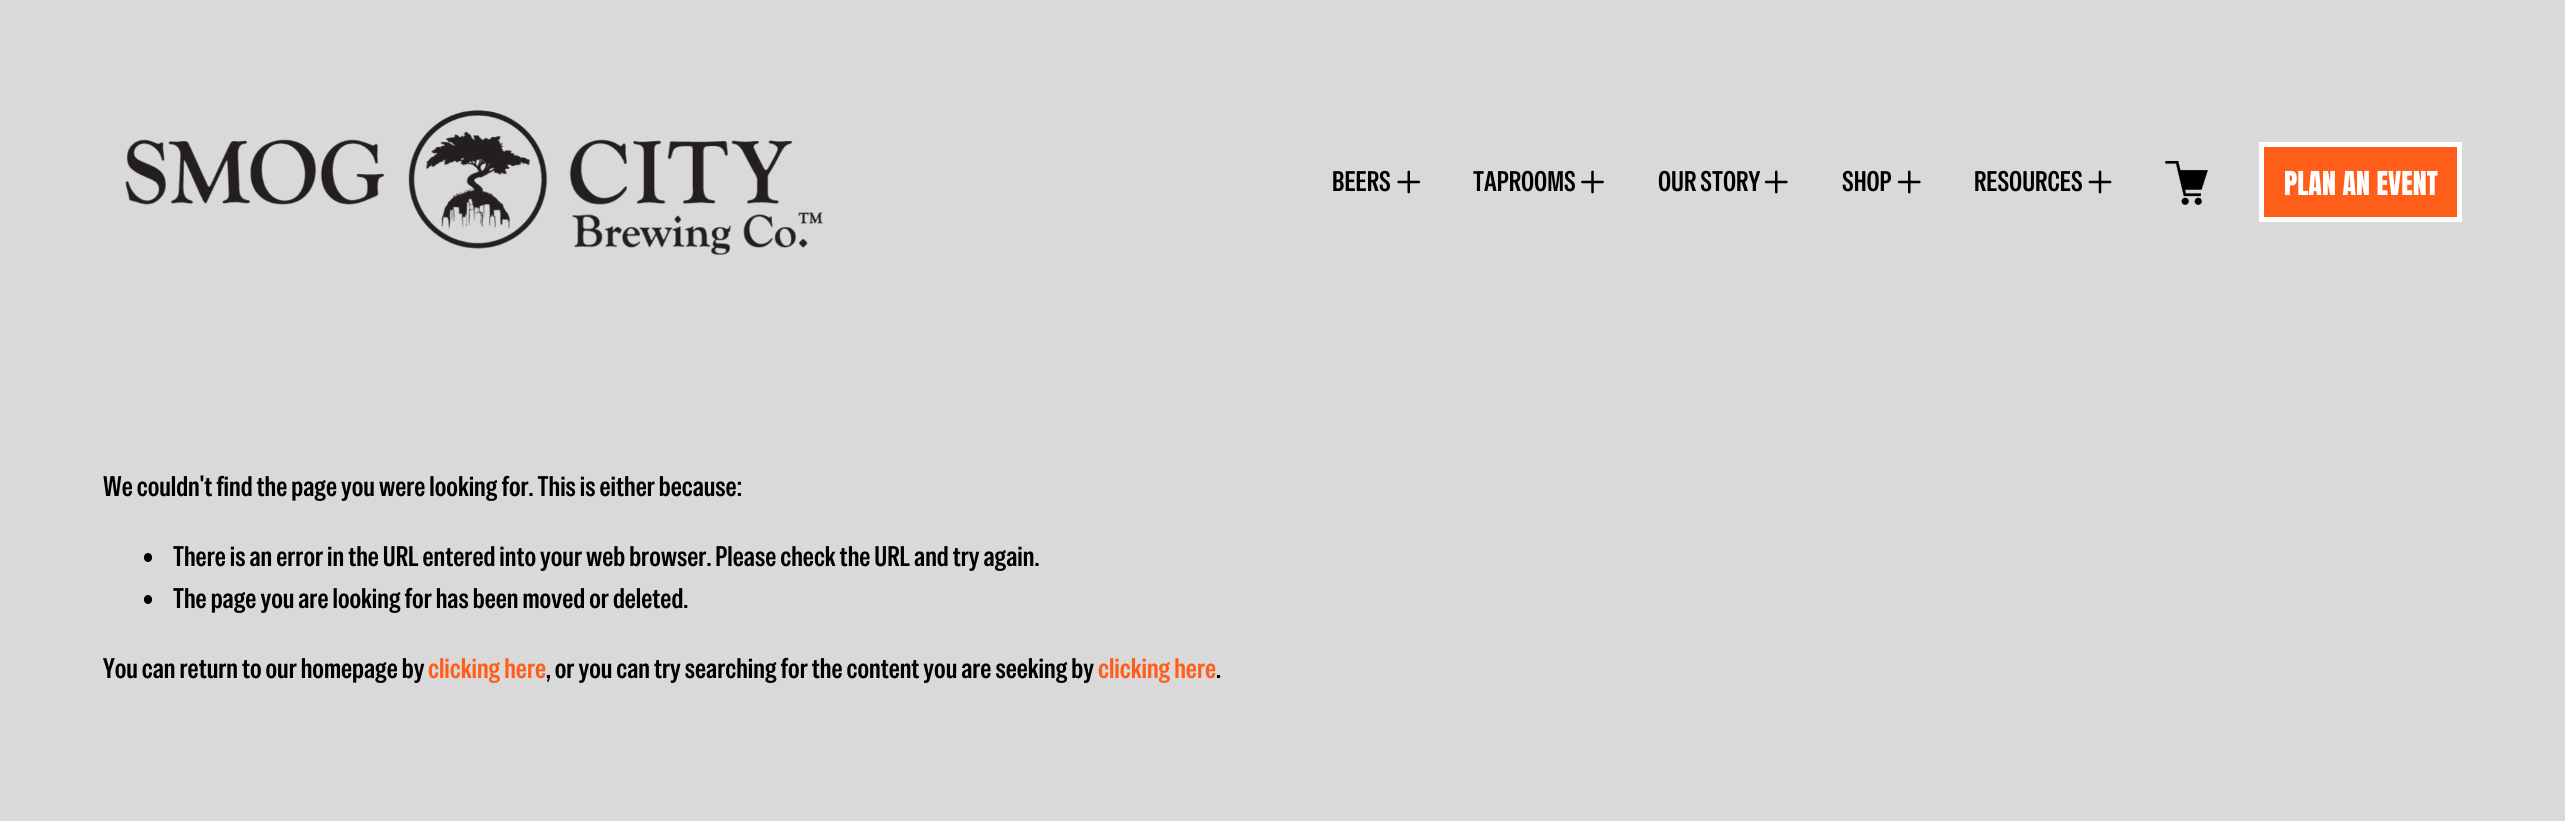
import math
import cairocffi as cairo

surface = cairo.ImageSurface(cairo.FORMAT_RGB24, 2565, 828)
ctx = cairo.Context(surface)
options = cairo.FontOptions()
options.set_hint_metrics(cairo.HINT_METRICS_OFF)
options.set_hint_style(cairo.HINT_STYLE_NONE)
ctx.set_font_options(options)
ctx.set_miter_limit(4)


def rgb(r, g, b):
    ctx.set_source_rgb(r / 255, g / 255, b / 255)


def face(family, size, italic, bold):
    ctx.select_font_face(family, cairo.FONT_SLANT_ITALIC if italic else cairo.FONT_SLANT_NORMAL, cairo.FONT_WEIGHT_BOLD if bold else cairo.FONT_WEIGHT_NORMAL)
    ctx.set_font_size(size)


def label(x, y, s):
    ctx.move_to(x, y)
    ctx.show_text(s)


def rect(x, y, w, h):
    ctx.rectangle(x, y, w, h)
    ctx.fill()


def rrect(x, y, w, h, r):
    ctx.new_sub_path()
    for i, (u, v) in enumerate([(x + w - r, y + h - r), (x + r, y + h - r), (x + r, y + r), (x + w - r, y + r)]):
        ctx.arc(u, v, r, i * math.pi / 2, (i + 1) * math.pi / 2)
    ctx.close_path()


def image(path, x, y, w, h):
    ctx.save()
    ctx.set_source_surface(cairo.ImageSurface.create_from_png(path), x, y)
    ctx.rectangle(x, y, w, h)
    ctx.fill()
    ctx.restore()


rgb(218, 217, 217)
ctx.paint()
image('image0.png', 125, 110, 698, 145)
face('Special Gothic Condensed One', 28, 0, 0)
rgb(0, 0, 0)
label(1332, 191, 'BEERS')
image('image1.png', 1397, 170, 24, 24)
label(1473, 191, 'TAPROOMS')
image('image2.png', 1581, 170, 23, 24)
label(1658, 191, 'OUR STORY')
image('image3.png', 1764, 170, 24, 24)
label(1842, 191, 'SHOP')
image('image3.png', 1897, 170, 24, 24)
label(1974, 191, 'RESOURCES')
image('image4.png', 2088, 170, 24, 24)
image('image5.png', 2165, 161, 43, 44)
rgb(255, 94, 26)
ctx.rectangle(2261.5, 144.5, 198, 75)
ctx.fill_preserve()
rgb(255, 255, 255)
ctx.set_line_width(5)
ctx.stroke()
face('Anton', 28, 0, 0)
label(2284, 195, 'PLAN AN EVENT')
face('Special Gothic Condensed One', 28, 0, 0)
rgb(0, 0, 0)
label(103, 496, 'We couldn\'t find the page you were looking for. This is either because:')
rrect(144, 553, 8, 9, 4)
ctx.fill()
label(173, 566, 'There is an error in the URL entered into your web browser. Please check the URL and try again.')
rrect(144, 595, 8, 9, 4)
ctx.fill()
label(173, 608, 'The page you are looking for has been moved or deleted.')
label(103, 678, 'You can return to our homepage by')
rgb(255, 94, 26)
label(428, 678, 'clicking here')
rgb(0, 0, 0)
label(546, 678, ', or you can try searching for the content you are seeking by')
rgb(255, 94, 26)
label(1098, 678, 'clicking here')
rgb(0, 0, 0)
label(1216, 678, '.')
rgb(255, 255, 255)
rect(0, 821, 2565, 7)
surface.write_to_png('render.png')
